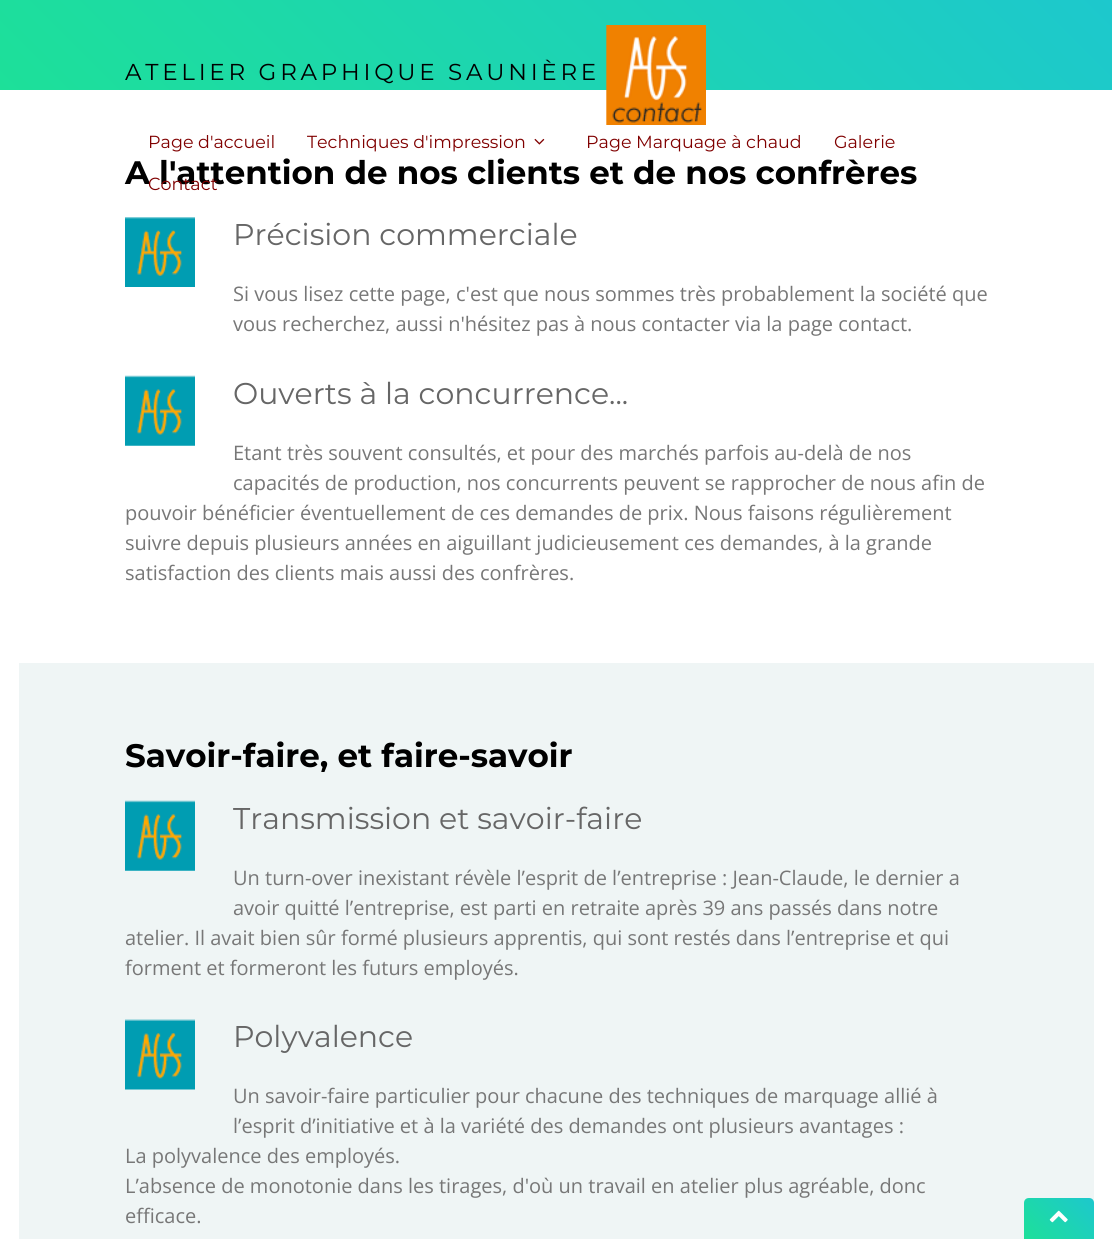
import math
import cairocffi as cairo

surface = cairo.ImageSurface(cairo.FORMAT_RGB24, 1112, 1239)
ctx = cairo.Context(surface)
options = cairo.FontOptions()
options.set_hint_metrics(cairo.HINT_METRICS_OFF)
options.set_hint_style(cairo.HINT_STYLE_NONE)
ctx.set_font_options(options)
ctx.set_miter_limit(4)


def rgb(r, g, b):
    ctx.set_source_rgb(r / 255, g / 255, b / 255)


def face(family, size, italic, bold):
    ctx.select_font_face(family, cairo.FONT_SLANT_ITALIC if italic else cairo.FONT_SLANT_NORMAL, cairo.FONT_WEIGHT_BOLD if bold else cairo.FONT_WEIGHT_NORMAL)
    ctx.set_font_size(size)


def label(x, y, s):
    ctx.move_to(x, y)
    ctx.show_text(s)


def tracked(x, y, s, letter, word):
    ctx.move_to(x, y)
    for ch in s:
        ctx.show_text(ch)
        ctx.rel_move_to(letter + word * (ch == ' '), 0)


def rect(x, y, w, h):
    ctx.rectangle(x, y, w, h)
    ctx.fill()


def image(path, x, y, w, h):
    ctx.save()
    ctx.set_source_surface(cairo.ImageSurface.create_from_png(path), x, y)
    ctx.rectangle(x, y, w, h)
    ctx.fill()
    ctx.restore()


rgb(255, 255, 255)
ctx.paint()
gradient = cairo.LinearGradient(256, 346, 857, -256)
gradient.add_color_stop_rgba(0, 0.114, 0.878, 0.6, 1)
gradient.add_color_stop_rgba(1, 0.114, 0.784, 0.804, 1)
ctx.set_source(gradient)
rect(0, 0, 1112, 90)
face('Montserrat', 23, 0, 0)
rgb(0, 0, 0)
tracked(125, 80, 'ATELIER GRAPHIQUE SAUNIÈRE', 3.75, 0)
image('image0.png', 606, 25, 100, 100)
face('Montserrat', 17.5, 0, 0)
rgb(128, 0, 0)
label(148, 148, 'Page d\'accueil')
label(307, 148, 'Techniques d\'impression')
image('image1.png', 534, 138, 11, 7)
label(586, 148, 'Page Marquage à chaud')
label(834, 148, 'Galerie')
face('Montserrat', 32.5, 0, 1)
rgb(0, 0, 0)
label(125, 184, 'A l\'attention de nos clients et de nos confrères')
face('Montserrat', 17.5, 0, 0)
rgb(128, 0, 0)
label(148, 190, 'Contact')
image('image2.png', 125, 217, 70, 70)
face('Montserrat', 30, 0, 0)
rgb(102, 102, 102)
label(233, 245, 'Précision commerciale')
face('Open Sans', 20, 0, 0)
rgb(119, 119, 119)
label(233, 301, 'Si vous lisez cette page, c\'est que nous sommes très probablement la société que')
label(233, 331, 'vous recherchez, aussi n\'hésitez pas à nous contacter via la page contact.')
image('image3.png', 125, 375, 70, 71)
face('Montserrat', 30, 0, 0)
rgb(102, 102, 102)
label(233, 404, 'Ouverts à la concurrence...')
face('Open Sans', 20, 0, 0)
rgb(119, 119, 119)
label(233, 460, 'Etant très souvent consultés, et pour des marchés parfois au-delà de nos')
label(233, 490, 'capacités de production, nos concurrents peuvent se rapprocher de nous afin de')
label(125, 520, 'pouvoir bénéficier éventuellement de ces demandes de prix. Nous faisons régulièrement')
label(125, 550, 'suivre depuis plusieurs années en aiguillant judicieusement ces demandes, à la grande')
label(125, 580, 'satisfaction des clients mais aussi des confrères.')
rgb(239, 245, 245)
rect(19, 663, 1075, 576)
face('Montserrat', 32.5, 0, 1)
rgb(0, 0, 0)
label(125, 767, 'Savoir-faire, et faire-savoir')
image('image4.png', 125, 800, 70, 71)
face('Montserrat', 30, 0, 0)
rgb(102, 102, 102)
label(233, 829, 'Transmission et savoir-faire')
face('Open Sans', 20, 0, 0)
rgb(119, 119, 119)
label(233, 885, 'Un turn-over inexistant révèle l’esprit de l’entreprise : Jean-Claude, le dernier a')
label(233, 915, 'avoir quitté l’entreprise, est parti en retraite après 39 ans passés dans notre')
label(125, 945, 'atelier. Il avait bien sûr formé plusieurs apprentis, qui sont restés dans l’entreprise et qui')
label(125, 975, 'forment et formeront les futurs employés.')
image('image5.png', 125, 1019, 70, 71)
face('Montserrat', 30, 0, 0)
rgb(102, 102, 102)
label(233, 1047, 'Polyvalence')
face('Open Sans', 20, 0, 0)
rgb(119, 119, 119)
label(233, 1103, 'Un savoir-faire particulier pour chacune des techniques de marquage allié à')
label(233, 1133, 'l’esprit d’initiative et à la variété des demandes ont plusieurs avantages :')
label(125, 1163, 'La polyvalence des employés.')
label(125, 1193, 'L’absence de monotonie dans les tirages, d\'où un travail en atelier plus agréable, donc')
label(125, 1223, 'efficace.')
gradient = cairo.LinearGradient(1031, 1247, 1087, 1191)
gradient.add_color_stop_rgba(0, 0.114, 0.878, 0.6, 1)
gradient.add_color_stop_rgba(1, 0.114, 0.784, 0.804, 1)
ctx.set_source(gradient)
ctx.new_path()
ctx.move_to(1029, 1198)
ctx.line_to(1089, 1198)
ctx.curve_to(1092, 1198, 1094, 1200, 1094, 1203)
ctx.line_to(1094, 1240)
ctx.line_to(1024, 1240)
ctx.line_to(1024, 1203)
ctx.curve_to(1024, 1200, 1026, 1198, 1029, 1198)
ctx.close_path()
ctx.fill()
image('image6.png', 1049, 1210, 19, 13)
surface.write_to_png('render.png')
